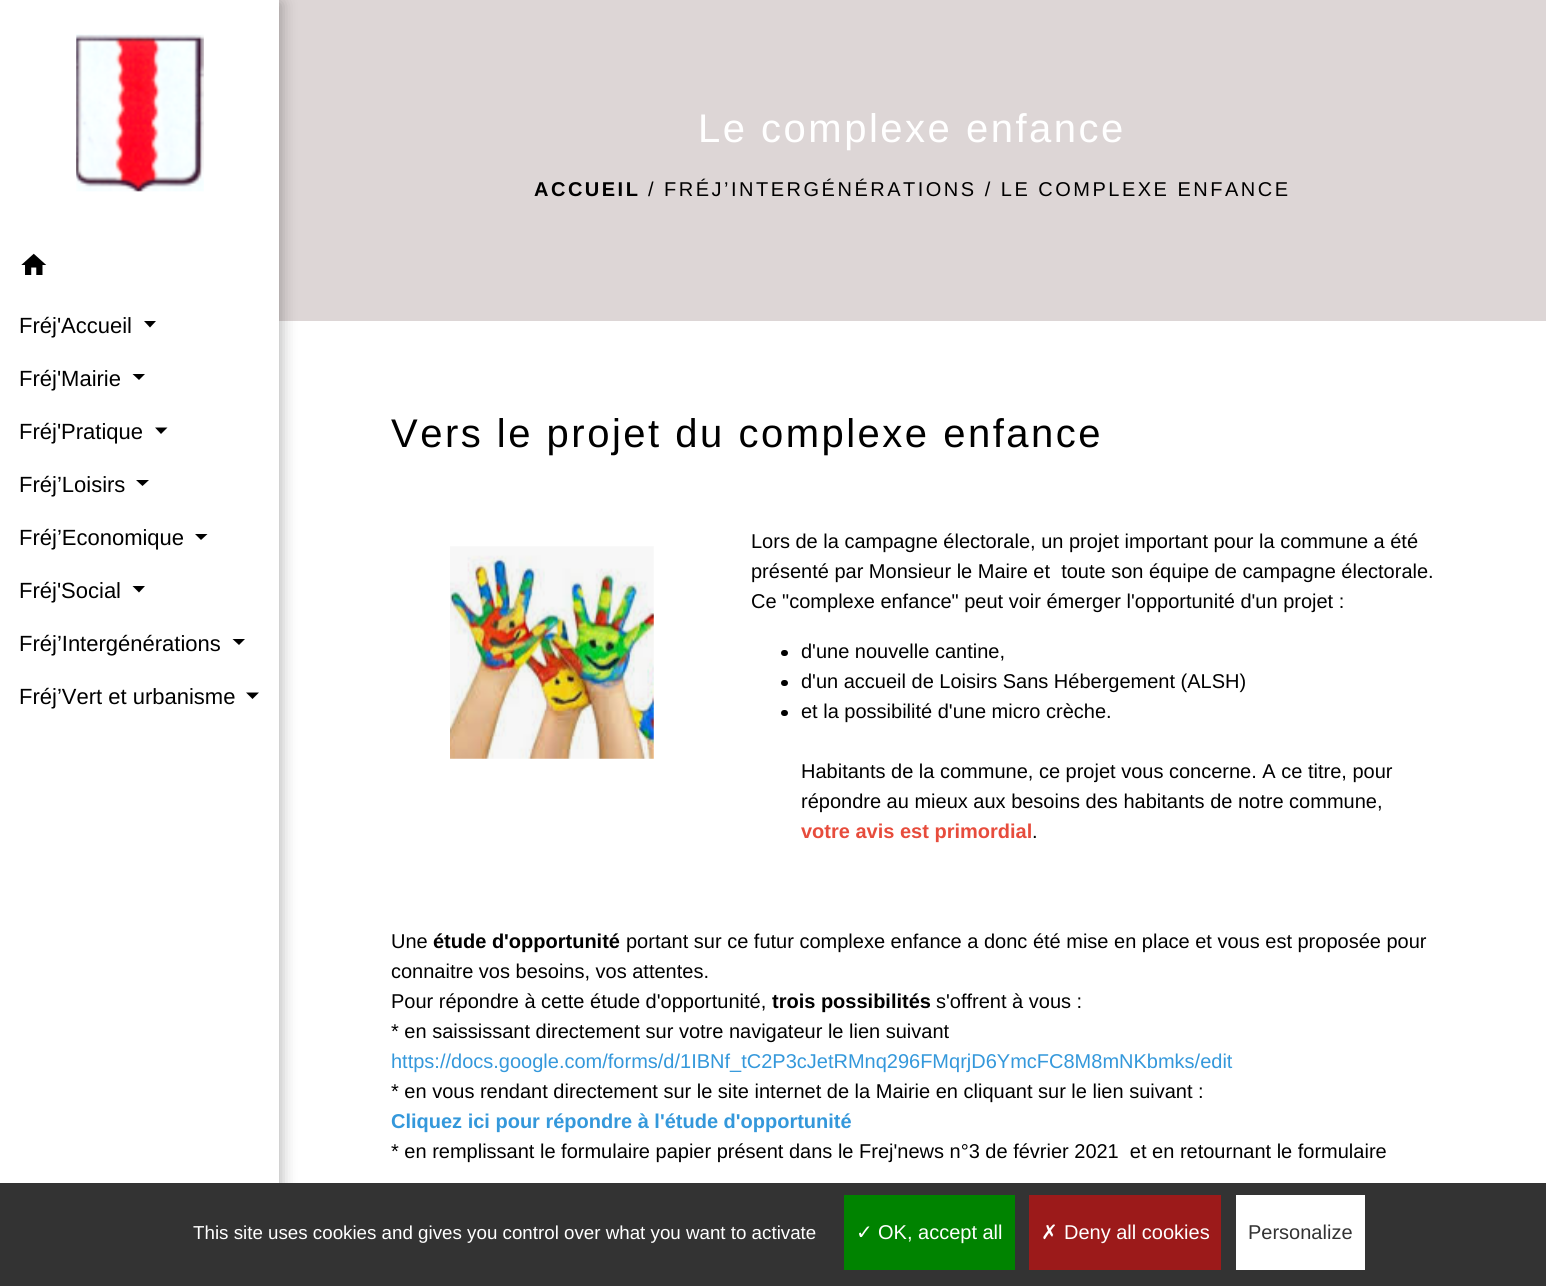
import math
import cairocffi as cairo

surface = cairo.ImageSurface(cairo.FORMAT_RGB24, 1546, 1286)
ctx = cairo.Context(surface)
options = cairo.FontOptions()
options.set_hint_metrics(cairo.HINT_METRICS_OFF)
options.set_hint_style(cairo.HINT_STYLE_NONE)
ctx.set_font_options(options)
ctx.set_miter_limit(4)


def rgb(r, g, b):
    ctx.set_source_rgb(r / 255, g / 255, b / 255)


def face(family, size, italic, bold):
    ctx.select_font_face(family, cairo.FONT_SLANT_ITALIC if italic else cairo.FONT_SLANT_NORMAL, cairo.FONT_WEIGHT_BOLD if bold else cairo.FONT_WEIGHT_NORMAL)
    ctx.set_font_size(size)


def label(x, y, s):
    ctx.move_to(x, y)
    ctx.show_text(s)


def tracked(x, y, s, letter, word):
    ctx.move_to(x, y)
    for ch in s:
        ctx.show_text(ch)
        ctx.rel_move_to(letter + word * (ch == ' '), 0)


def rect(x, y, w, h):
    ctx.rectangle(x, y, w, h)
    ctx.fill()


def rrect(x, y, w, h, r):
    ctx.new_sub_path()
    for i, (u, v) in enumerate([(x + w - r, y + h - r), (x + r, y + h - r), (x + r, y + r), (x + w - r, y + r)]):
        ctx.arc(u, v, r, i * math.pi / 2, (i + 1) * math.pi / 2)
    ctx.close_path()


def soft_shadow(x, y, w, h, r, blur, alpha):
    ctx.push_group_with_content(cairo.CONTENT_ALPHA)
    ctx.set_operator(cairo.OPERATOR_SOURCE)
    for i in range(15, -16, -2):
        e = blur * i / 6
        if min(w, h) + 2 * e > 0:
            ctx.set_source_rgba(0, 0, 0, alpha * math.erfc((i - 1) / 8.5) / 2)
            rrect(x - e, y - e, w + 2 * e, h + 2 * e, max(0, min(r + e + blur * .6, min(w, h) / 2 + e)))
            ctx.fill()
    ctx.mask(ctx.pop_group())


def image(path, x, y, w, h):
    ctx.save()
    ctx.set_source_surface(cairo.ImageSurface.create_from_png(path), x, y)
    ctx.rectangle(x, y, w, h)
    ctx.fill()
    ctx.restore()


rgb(255, 255, 255)
ctx.paint()
rgb(221, 214, 214)
rect(279, 0, 1267, 321)
rgb(0, 0, 0)
soft_shadow(3, 3, 278, 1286, 0, 8, 0.3)
rgb(255, 255, 255)
rect(0, 0, 279, 1183)
image('image0.png', 76, 34, 128, 158)
image('image1.png', 21, 253, 26, 22)
face('Liberation Sans', 22, 0, 0)
rgb(0, 0, 0)
label(19, 333, 'Fréj\'Accueil')
ctx.new_path()
ctx.move_to(144, 321)
ctx.line_to(156, 321)
ctx.line_to(150, 327.5)
ctx.close_path()
ctx.fill()
label(19, 386, 'Fréj\'Mairie')
ctx.new_path()
ctx.move_to(132.5, 374)
ctx.line_to(145, 374)
ctx.line_to(139, 380)
ctx.close_path()
ctx.fill()
label(19, 439, 'Fréj\'Pratique')
ctx.new_path()
ctx.move_to(155, 427.5)
ctx.line_to(167.5, 427.5)
ctx.line_to(161, 434)
ctx.close_path()
ctx.fill()
label(19, 492, 'Fréj’Loisirs')
ctx.new_path()
ctx.move_to(136, 480)
ctx.line_to(149, 480)
ctx.line_to(142.5, 486)
ctx.close_path()
ctx.fill()
label(19, 545, 'Fréj’Economique')
ctx.new_path()
ctx.move_to(195, 534)
ctx.line_to(207.5, 534)
ctx.line_to(201, 540)
ctx.close_path()
ctx.fill()
label(19, 598, 'Fréj\'Social')
ctx.new_path()
ctx.move_to(132.5, 586)
ctx.line_to(145, 586)
ctx.line_to(139, 592.5)
ctx.close_path()
ctx.fill()
label(19, 651, 'Fréj’Intergénérations')
ctx.new_path()
ctx.move_to(232.5, 639)
ctx.line_to(245, 639)
ctx.line_to(239, 645)
ctx.close_path()
ctx.fill()
label(19, 704, 'Fréj’Vert et urbanisme')
ctx.new_path()
ctx.move_to(246, 692.5)
ctx.line_to(259, 692.5)
ctx.line_to(252.5, 699)
ctx.close_path()
ctx.fill()
face('Liberation Sans', 40, 0, 0)
rgb(255, 255, 255)
tracked(698, 142, 'Le complexe enfance', 2.5, 0)
face('Liberation Sans', 20, 0, 1)
rgb(0, 0, 0)
tracked(534, 196, 'ACCUEIL', 2.5, 0)
face('Liberation Sans', 20, 0, 0)
tracked(648, 196, '/ FRÉJ’INTERGÉNÉRATIONS / LE COMPLEXE ENFANCE', 2.5, 0)
face('Liberation Sans', 40, 0, 0)
tracked(391, 447, 'Vers le projet du complexe enfance', 2.5, 0)
image('image2.png', 450, 546, 204, 213)
face('Liberation Sans', 20, 0, 0)
label(751, 548, 'Lors de la campagne électorale, un projet important pour la commune a été')
label(751, 578, 'présenté par Monsieur le Maire et  toute son équipe de campagne électorale.')
label(751, 608, 'Ce "complexe enfance" peut voir émerger l\'opportunité d\'un projet :')
rrect(781, 650, 7, 6, 3)
ctx.fill()
label(801, 658, 'd\'une nouvelle cantine,')
rrect(781, 680, 7, 6, 3)
ctx.fill()
label(801, 688, 'd\'un accueil de Loisirs Sans Hébergement (ALSH)')
rrect(781, 710, 7, 6, 3)
ctx.fill()
label(801, 718, 'et la possibilité d\'une micro crèche.')
label(801, 778, 'Habitants de la commune, ce projet vous concerne. A ce titre, pour')
label(801, 808, 'répondre au mieux aux besoins des habitants de notre commune,')
face('Liberation Sans', 20, 0, 1)
rgb(231, 76, 60)
label(801, 838, 'votre avis est primordial')
face('Liberation Sans', 20, 0, 0)
rgb(0, 0, 0)
label(1032, 838, '.')
label(391, 948, 'Une')
face('Liberation Sans', 20, 0, 1)
label(433, 948, 'étude d\'opportunité')
face('Liberation Sans', 20, 0, 0)
label(626, 948, 'portant sur ce futur complexe enfance a donc été mise en place et vous est proposée pour')
label(391, 978, 'connaitre vos besoins, vos attentes.')
label(391, 1008, 'Pour répondre à cette étude d\'opportunité,')
face('Liberation Sans', 20, 0, 1)
label(772, 1008, 'trois possibilités')
face('Liberation Sans', 20, 0, 0)
label(936, 1008, 's\'offrent à vous :')
label(391, 1038, '* en saississant directement sur votre navigateur le lien suivant')
rgb(52, 152, 219)
label(391, 1068, 'https://docs.google.com/forms/d/1IBNf_tC2P3cJetRMnq296FMqrjD6YmcFC8M8mNKbmks/edit')
rgb(0, 0, 0)
label(391, 1098, '* en vous rendant directement sur le site internet de la Mairie en cliquant sur le lien suivant :')
face('Liberation Sans', 20, 0, 1)
rgb(52, 152, 219)
label(391, 1128, 'Cliquez ici pour répondre à l\'étude d\'opportunité')
face('Liberation Sans', 20, 0, 0)
rgb(0, 0, 0)
label(391, 1158, '* en remplissant le formulaire papier présent dans le Frej\'news n°3 de février 2021  et en retournant le formulaire')
rgb(51, 51, 51)
rect(0, 1183, 1546, 103)
face('Liberation Sans', 18.75, 0, 0)
rgb(255, 255, 255)
label(193, 1239, 'This site uses cookies and gives you control over what you want to activate')
rgb(0, 131, 0)
rect(844, 1195, 171, 75)
face('DejaVu Sans', 20, 0, 0)
rgb(255, 255, 255)
label(856, 1239, '✓')
face('Liberation Sans', 20, 0, 0)
label(878, 1239, 'OK, accept all')
rgb(156, 26, 26)
rect(1029, 1195, 192, 75)
face('DejaVu Sans', 20, 0, 0)
rgb(255, 255, 255)
label(1041, 1239, '✗')
face('Liberation Sans', 20, 0, 0)
label(1064, 1239, 'Deny all cookies')
rect(1236, 1195, 129, 75)
rgb(51, 51, 51)
label(1248, 1239, 'Personalize')
surface.write_to_png('render.png')
